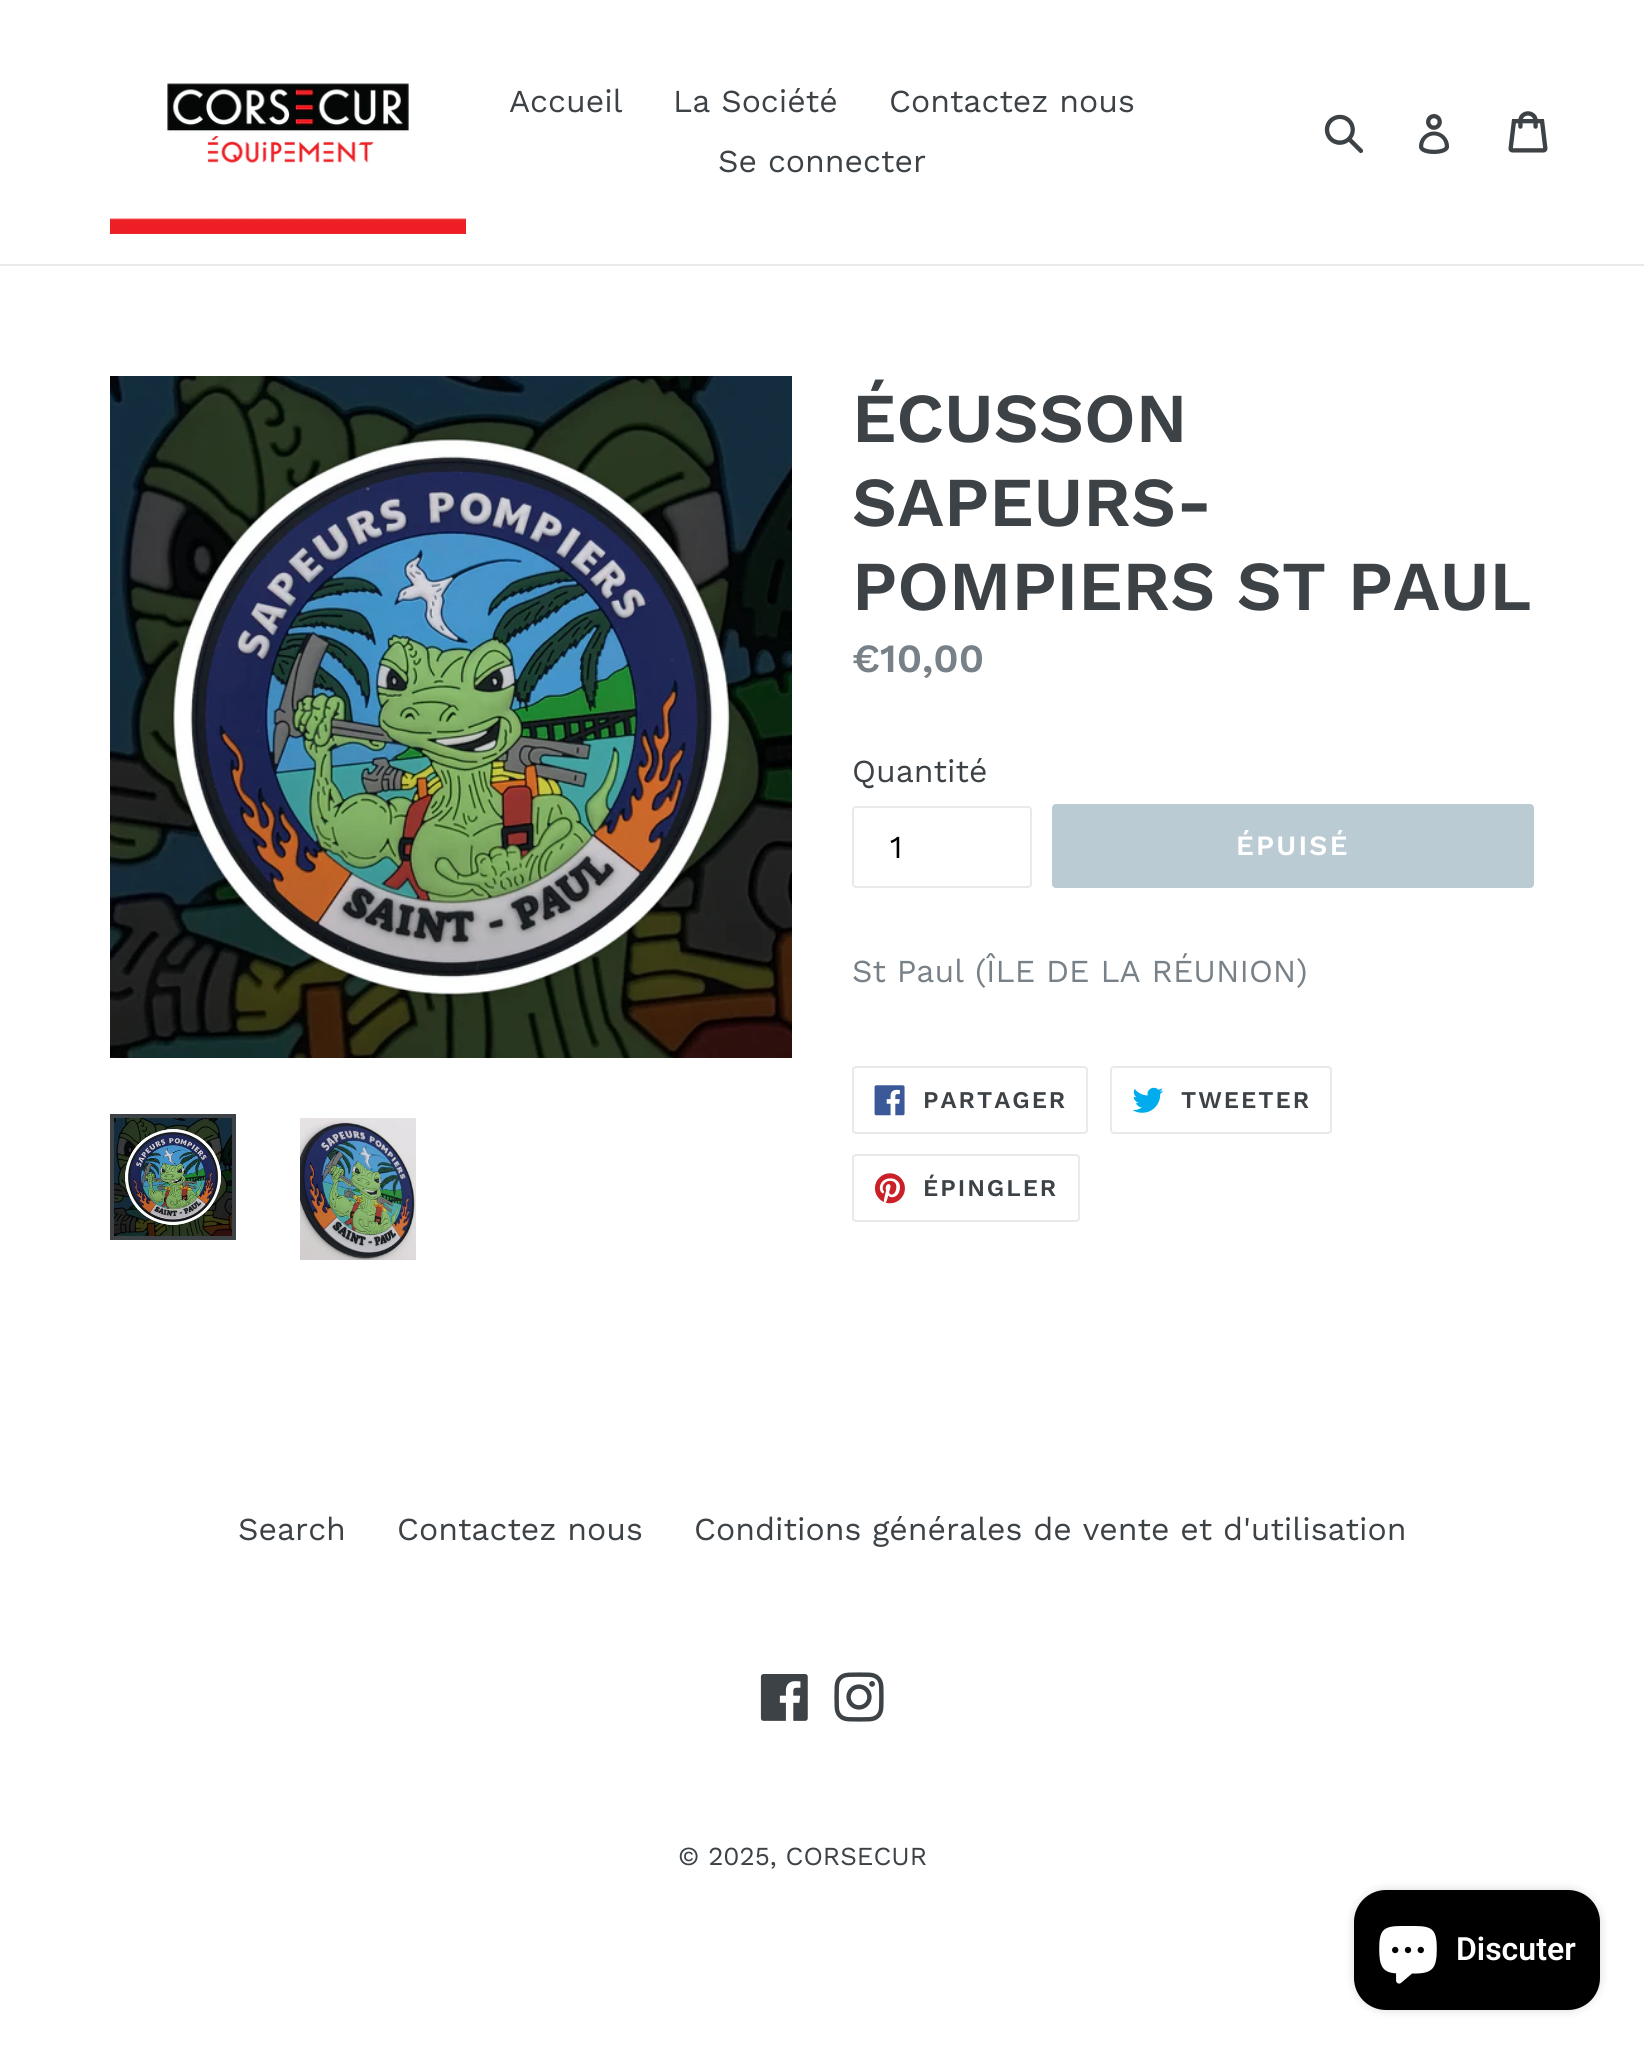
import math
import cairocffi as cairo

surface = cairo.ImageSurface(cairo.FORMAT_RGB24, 1644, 2051)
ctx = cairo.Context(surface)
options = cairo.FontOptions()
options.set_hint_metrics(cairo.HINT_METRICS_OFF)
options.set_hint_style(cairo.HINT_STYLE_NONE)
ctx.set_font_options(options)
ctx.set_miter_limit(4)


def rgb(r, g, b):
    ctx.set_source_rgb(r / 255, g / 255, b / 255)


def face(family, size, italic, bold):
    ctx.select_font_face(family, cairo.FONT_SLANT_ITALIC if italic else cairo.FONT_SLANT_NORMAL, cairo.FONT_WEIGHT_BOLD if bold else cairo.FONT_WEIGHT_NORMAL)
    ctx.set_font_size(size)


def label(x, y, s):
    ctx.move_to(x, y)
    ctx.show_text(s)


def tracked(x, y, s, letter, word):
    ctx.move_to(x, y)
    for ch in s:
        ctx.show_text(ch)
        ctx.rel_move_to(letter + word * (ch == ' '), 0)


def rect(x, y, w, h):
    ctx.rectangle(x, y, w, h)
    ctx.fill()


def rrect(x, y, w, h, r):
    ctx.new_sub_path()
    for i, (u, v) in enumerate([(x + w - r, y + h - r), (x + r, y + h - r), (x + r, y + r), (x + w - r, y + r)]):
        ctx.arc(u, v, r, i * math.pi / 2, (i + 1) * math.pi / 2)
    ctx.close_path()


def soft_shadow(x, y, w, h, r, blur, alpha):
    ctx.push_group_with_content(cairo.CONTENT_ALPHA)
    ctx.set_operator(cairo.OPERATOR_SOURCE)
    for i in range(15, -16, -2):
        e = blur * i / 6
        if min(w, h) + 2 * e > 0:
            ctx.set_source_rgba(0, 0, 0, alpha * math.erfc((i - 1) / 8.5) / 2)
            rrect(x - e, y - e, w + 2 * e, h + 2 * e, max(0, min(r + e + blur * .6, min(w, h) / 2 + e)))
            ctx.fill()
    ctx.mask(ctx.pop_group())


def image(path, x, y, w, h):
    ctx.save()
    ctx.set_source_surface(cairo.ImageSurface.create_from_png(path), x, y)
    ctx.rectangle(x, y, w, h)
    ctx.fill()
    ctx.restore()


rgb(255, 255, 255)
ctx.paint()
rgb(232, 233, 235)
rect(0, 264, 1644, 2)
image('image0.png', 110, 83, 356, 151)
face('Work Sans', 32, 0, 0)
rgb(61, 66, 70)
label(509, 112, 'Accueil')
label(673, 112, 'La Société')
label(889, 112, 'Contactez nous')
label(718, 172, 'Se connecter')
image('image1.png', 1324, 114, 40, 40)
image('image2.png', 1419, 114, 31, 40)
image('image3.png', 1508, 111, 40, 42)
image('image4.png', 110, 376, 682, 682)
ctx.rectangle(112, 1116, 122, 122)
ctx.set_line_width(4)
ctx.stroke()
image('image5.png', 114, 1118, 118, 118)
image('image6.png', 300, 1118, 116, 142)
face('Work Sans SemiBold', 70, 0, 0)
label(852, 442, 'ÉCUSSON')
label(852, 526, 'SAPEURS-')
label(852, 610, 'POMPIERS ST PAUL')
face('Work Sans SemiBold', 40, 0, 0)
rgb(120, 129, 136)
label(852, 672, '€10,00')
face('Work Sans', 32, 0, 0)
rgb(61, 66, 70)
label(852, 782, 'Quantité')
rrect(853, 807, 178, 80, 3)
rgb(232, 233, 235)
ctx.set_line_width(2)
ctx.stroke()
rgb(0, 0, 0)
label(890, 858, '1')
rgb(187, 203, 212)
rrect(1052, 804, 482, 84, 4)
ctx.fill()
face('Work Sans SemiBold', 28, 0, 0)
rgb(255, 255, 255)
tracked(1236, 855, 'ÉPUISÉ', 2.25, 0)
face('Work Sans', 32, 0, 0)
rgb(120, 129, 136)
label(852, 982, 'St Paul (ÎLE DE LA RÉUNION)')
rrect(853, 1067, 234, 66, 3)
rgb(232, 233, 235)
ctx.stroke()
image('image7.png', 874, 1085, 31, 31)
face('Work Sans SemiBold', 24, 0, 0)
rgb(61, 66, 70)
tracked(923, 1108, 'PARTAGER', 2, 0)
rrect(1111, 1067, 220, 66, 3)
rgb(232, 233, 235)
ctx.stroke()
image('image8.png', 1132, 1087, 32, 26)
rgb(61, 66, 70)
tracked(1181, 1108, 'TWEETER', 2, 0)
rrect(853, 1155, 226, 66, 3)
rgb(232, 233, 235)
ctx.stroke()
image('image9.png', 874, 1173, 31, 31)
rgb(61, 66, 70)
tracked(923, 1196, 'ÉPINGLER', 2, 0)
face('Work Sans', 32, 0, 0)
label(238, 1540, 'Search')
label(397, 1540, 'Contactez nous')
label(694, 1540, 'Conditions générales de vente et d\'utilisation')
image('image10.png', 760, 1674, 48, 47)
image('image11.png', 834, 1672, 50, 50)
face('Work Sans', 26, 0, 0)
label(678, 1865, '© 2025, CORSECUR')
rgb(0, 0, 0)
soft_shadow(1354, 1890, 246, 120, 32, 5, 0.15)
rgb(0, 0, 0)
rrect(1354, 1890, 246, 120, 32)
ctx.fill()
image('image12.png', 1379, 1926, 58, 58)
face('Roboto SemiBold', 32, 0, 0)
rgb(255, 255, 255)
label(1456, 1960, 'Discuter')
surface.write_to_png('render.png')
